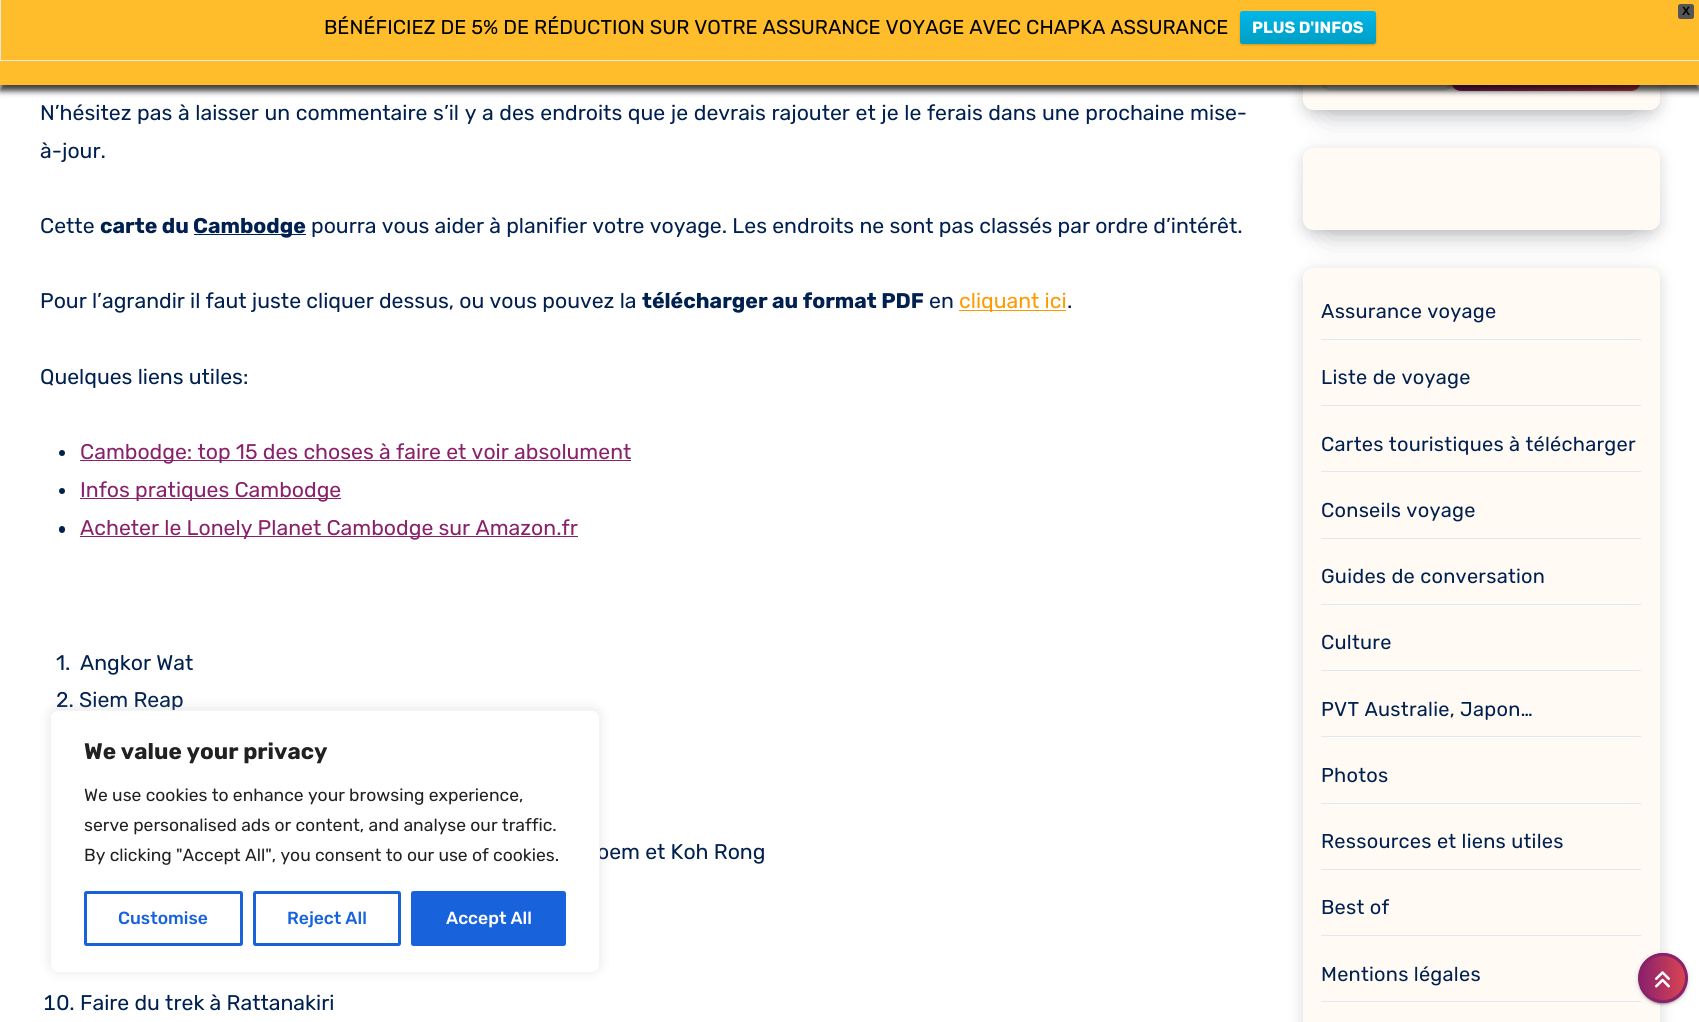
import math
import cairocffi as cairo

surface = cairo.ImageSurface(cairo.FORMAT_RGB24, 1699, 1022)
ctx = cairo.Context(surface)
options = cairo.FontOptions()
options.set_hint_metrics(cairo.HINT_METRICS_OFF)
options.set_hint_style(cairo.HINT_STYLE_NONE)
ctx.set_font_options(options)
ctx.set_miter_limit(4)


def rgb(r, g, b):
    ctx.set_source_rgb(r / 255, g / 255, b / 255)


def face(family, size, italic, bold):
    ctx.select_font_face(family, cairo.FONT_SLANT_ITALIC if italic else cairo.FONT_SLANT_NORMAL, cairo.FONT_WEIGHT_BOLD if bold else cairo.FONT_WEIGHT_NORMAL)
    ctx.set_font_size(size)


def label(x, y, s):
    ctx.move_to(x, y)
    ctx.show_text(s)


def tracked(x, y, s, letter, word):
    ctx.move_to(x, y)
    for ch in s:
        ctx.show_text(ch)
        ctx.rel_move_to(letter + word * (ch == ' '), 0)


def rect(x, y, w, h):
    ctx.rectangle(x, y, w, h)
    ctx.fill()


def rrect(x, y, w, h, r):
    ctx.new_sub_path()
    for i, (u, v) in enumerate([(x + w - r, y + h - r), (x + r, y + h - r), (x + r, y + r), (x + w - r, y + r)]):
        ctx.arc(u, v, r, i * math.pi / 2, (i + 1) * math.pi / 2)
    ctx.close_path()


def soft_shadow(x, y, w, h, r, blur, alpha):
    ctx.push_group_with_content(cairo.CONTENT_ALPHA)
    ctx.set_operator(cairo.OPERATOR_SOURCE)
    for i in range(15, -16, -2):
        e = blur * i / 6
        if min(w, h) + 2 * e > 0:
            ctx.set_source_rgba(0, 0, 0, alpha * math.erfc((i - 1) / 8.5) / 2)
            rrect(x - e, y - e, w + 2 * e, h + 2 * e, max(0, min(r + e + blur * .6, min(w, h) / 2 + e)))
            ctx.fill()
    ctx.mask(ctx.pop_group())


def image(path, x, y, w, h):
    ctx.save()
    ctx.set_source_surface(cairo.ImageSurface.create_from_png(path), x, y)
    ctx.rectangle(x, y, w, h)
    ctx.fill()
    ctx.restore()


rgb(255, 255, 255)
ctx.paint()
rgb(7, 10, 25)
soft_shadow(1328, 53, 307, 60, 0, 17, 0.2)
soft_shadow(1304, 5, 355, 108, 9, 7.5, 0.2)
rgb(255, 250, 244)
rrect(1303, 0, 357, 110, 10)
ctx.fill()
rgb(255, 255, 255)
rrect(1322.5, 20.5, 129, 69, 8.5)
ctx.fill_preserve()
rgb(229, 229, 229)
ctx.set_line_width(3)
ctx.stroke()
gradient = cairo.LinearGradient(1451, 55, 1641, 55)
gradient.add_color_stop_rgba(0, 0.537, 0.129, 0.42, 1)
gradient.add_color_stop_rgba(1, 0.855, 0.267, 0.325, 1)
ctx.set_source(gradient)
rrect(1451, 19, 190, 72, 10)
ctx.fill()
rgb(0, 0, 0)
soft_shadow(0, 6, 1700, 85, 0, 3, 0.75)
rgb(255, 188, 43)
rect(0, 0, 1699, 85)
rgb(85, 85, 85)
rrect(1678.5, 4.5, 15, 14, 2)
ctx.fill_preserve()
ctx.set_line_width(1)
ctx.stroke()
face('Liberation Sans', 12, 0, 1)
rgb(0, 0, 0)
label(1682, 15, 'X')
rgb(233, 233, 233)
rect(0, 60, 1699, 1)
rect(0, 0, 1, 61)
face('Rubik Light', 20, 0, 0)
rgb(0, 0, 0)
label(324, 34, 'BÉNÉFICIEZ DE 5% DE RÉDUCTION SUR VOTRE ASSURANCE VOYAGE AVEC CHAPKA ASSURANCE')
rgb(0, 0, 0)
soft_shadow(1240, 13, 136, 32, 2.5, 1, 0.2)
gradient = cairo.LinearGradient(1308, 11, 1308, 44)
gradient.add_color_stop_rgba(0, 0, 0.718, 0.918, 1)
gradient.add_color_stop_rgba(1, 0, 0.62, 0.765, 1)
ctx.set_source(gradient)
rrect(1240, 11, 136, 33, 2.5)
ctx.fill()
face('Rubik', 16.25, 0, 1)
rgb(255, 255, 255)
label(1252, 33, 'PLUS D\'INFOS')
face('Rubik Light', 21.25, 0, 0)
rgb(0, 32, 80)
tracked(40, 120, 'N’hésitez pas à laisser un commentaire s’il y a des endroits que je devrais rajouter et je le ferais dans une prochaine mise-', 0, 0.4)
label(40, 158, 'à-jour.')
label(40, 233, 'Cette')
face('Rubik', 21.25, 0, 1)
label(100, 233, 'carte du')
rect(194, 234, 112, 1)
label(193, 233, 'Cambodge')
face('Rubik Light', 21.25, 0, 0)
label(311, 233, 'pourra vous aider à planifier votre voyage. Les endroits ne sont pas classés par ordre d’intérêt.')
label(40, 308, 'Pour l’agrandir il faut juste cliquer dessus, ou vous pouvez la')
face('Rubik', 21.25, 0, 1)
label(642, 308, 'télécharger au format PDF')
face('Rubik Light', 21.25, 0, 0)
label(929, 308, 'en')
rgb(255, 153, 0)
rect(959, 310, 107, 1)
label(959, 308, 'cliquant ici')
rgb(0, 32, 80)
label(1067, 308, '.')
label(40, 384, 'Quelques liens utiles:')
ctx.new_path()
ctx.arc(62, 453, 3, 0, 2 * math.pi)
ctx.fill()
rgb(137, 33, 107)
rect(80, 460, 551, 1)
label(80, 459, 'Cambodge: top 15 des choses à faire et voir absolument')
rgb(0, 32, 80)
ctx.new_path()
ctx.arc(62, 491, 3, 0, 2 * math.pi)
ctx.fill()
rgb(137, 33, 107)
rect(80, 498, 261, 1)
label(80, 497, 'Infos pratiques Cambodge')
rgb(0, 32, 80)
rrect(59, 526, 6, 7, 3)
ctx.fill()
rgb(137, 33, 107)
rect(80, 536, 498, 1)
label(80, 535, 'Acheter le Lonely Planet Cambodge sur Amazon.fr')
rgb(0, 32, 80)
label(56, 670, '1.')
label(80, 670, 'Angkor Wat')
label(56, 707, '2. Siem Reap')
label(597, 859, 'oem et Koh Rong')
face('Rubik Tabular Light', 21.25, 0, 0)
label(43, 1010, '10.')
face('Rubik Light', 21.25, 0, 0)
label(80, 1010, 'Faire du trek à Rattanakiri')
rgb(7, 10, 25)
soft_shadow(1328, 200, 307, 33, 0, 17, 0.2)
soft_shadow(1304, 153, 355, 80, 9, 7.5, 0.2)
rgb(255, 250, 244)
rrect(1303, 148, 357, 82, 10)
ctx.fill()
rgb(7, 10, 25)
soft_shadow(1304, 273, 355, 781, 9, 7.5, 0.2)
rgb(255, 250, 244)
rrect(1303, 268, 357, 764, 10)
ctx.fill()
rgb(226, 232, 240)
rect(1321, 339, 320, 1)
face('Rubik Light', 20, 0, 0)
rgb(0, 32, 80)
tracked(1321, 318, 'Assurance voyage', 0.25, 0)
rgb(226, 232, 240)
rect(1321, 405, 320, 1)
rgb(0, 32, 80)
tracked(1321, 384, 'Liste de voyage', 0.25, 0)
rgb(226, 232, 240)
rect(1321, 471, 320, 1)
rgb(0, 32, 80)
tracked(1321, 451, 'Cartes touristiques à télécharger', 0.25, 0)
rgb(226, 232, 240)
rect(1321, 538, 320, 1)
rgb(0, 32, 80)
tracked(1321, 517, 'Conseils voyage', 0.25, 0)
rgb(226, 232, 240)
rect(1321, 604, 320, 1)
rgb(0, 32, 80)
tracked(1321, 583, 'Guides de conversation', 0.25, 0)
rgb(226, 232, 240)
rect(1321, 670, 320, 1)
rgb(0, 32, 80)
tracked(1321, 649, 'Culture', 0.25, 0)
rgb(226, 232, 240)
rect(1321, 736, 320, 1)
rgb(0, 32, 80)
tracked(1321, 716, 'PVT Australie, Japon…', 0.25, 0)
rgb(226, 232, 240)
rect(1321, 803, 320, 1)
rgb(0, 32, 80)
tracked(1321, 782, 'Photos', 0.25, 0)
rgb(226, 232, 240)
rect(1321, 869, 320, 1)
rgb(0, 32, 80)
tracked(1321, 848, 'Ressources et liens utiles', 0.25, 0)
rgb(226, 232, 240)
rect(1321, 935, 320, 1)
rgb(0, 32, 80)
tracked(1321, 914, 'Best of', 0.25, 0)
rgb(226, 232, 240)
rect(1321, 1001, 320, 1)
rgb(0, 32, 80)
tracked(1321, 981, 'Mentions légales', 0.25, 0)
rgb(172, 171, 171)
soft_shadow(50, 709, 550, 262, 8, 6, 0.3)
rgb(255, 255, 255)
rrect(50.5, 710.5, 549, 262, 7.5)
ctx.fill_preserve()
rgb(244, 244, 244)
ctx.stroke()
face('Rubik', 22.5, 0, 1)
rgb(33, 33, 33)
label(84, 759, 'We value your privacy')
face('Rubik Light', 17.5, 0, 0)
label(84, 801, 'We use cookies to enhance your browsing experience,')
label(84, 831, 'serve personalised ads or content, and analyse our traffic.')
label(84, 861, 'By clicking "Accept All", you consent to our use of cookies.')
rrect(85.5, 892.5, 156, 52, 1)
rgb(24, 99, 220)
ctx.set_line_width(3)
ctx.stroke()
face('Rubik Medium', 17.5, 0, 0)
label(118, 924, 'Customise')
rrect(254.5, 892.5, 145, 52, 1)
ctx.stroke()
label(287, 924, 'Reject All')
rrect(412.5, 892.5, 152, 52, 1)
ctx.fill_preserve()
ctx.stroke()
rgb(255, 255, 255)
label(446, 924, 'Accept All')
rgb(0, 0, 0)
soft_shadow(1638, 954, 50, 50, 25, 3, 0.12)
soft_shadow(1640, 959, 45, 45, 22.5, 0.5, 0.2)
soft_shadow(1638, 955, 50, 50, 25, 1, 0.14)
ctx.save()
rrect(1638, 953, 50, 50, 25)
ctx.clip()
gradient = cairo.LinearGradient(1640, 978, 1685, 978)
gradient.add_color_stop_rgba(0, 0.537, 0.129, 0.42, 1)
gradient.add_color_stop_rgba(1, 0.855, 0.267, 0.325, 1)
ctx.set_source(gradient)
rect(1640, 953, 45, 50)
ctx.restore()
ctx.arc(1663, 978, 23.5, 0, 2 * math.pi)
rgb(137, 33, 107)
ctx.stroke()
image('image0.png', 1655, 971, 15, 17)
surface.write_to_png('render.png')
